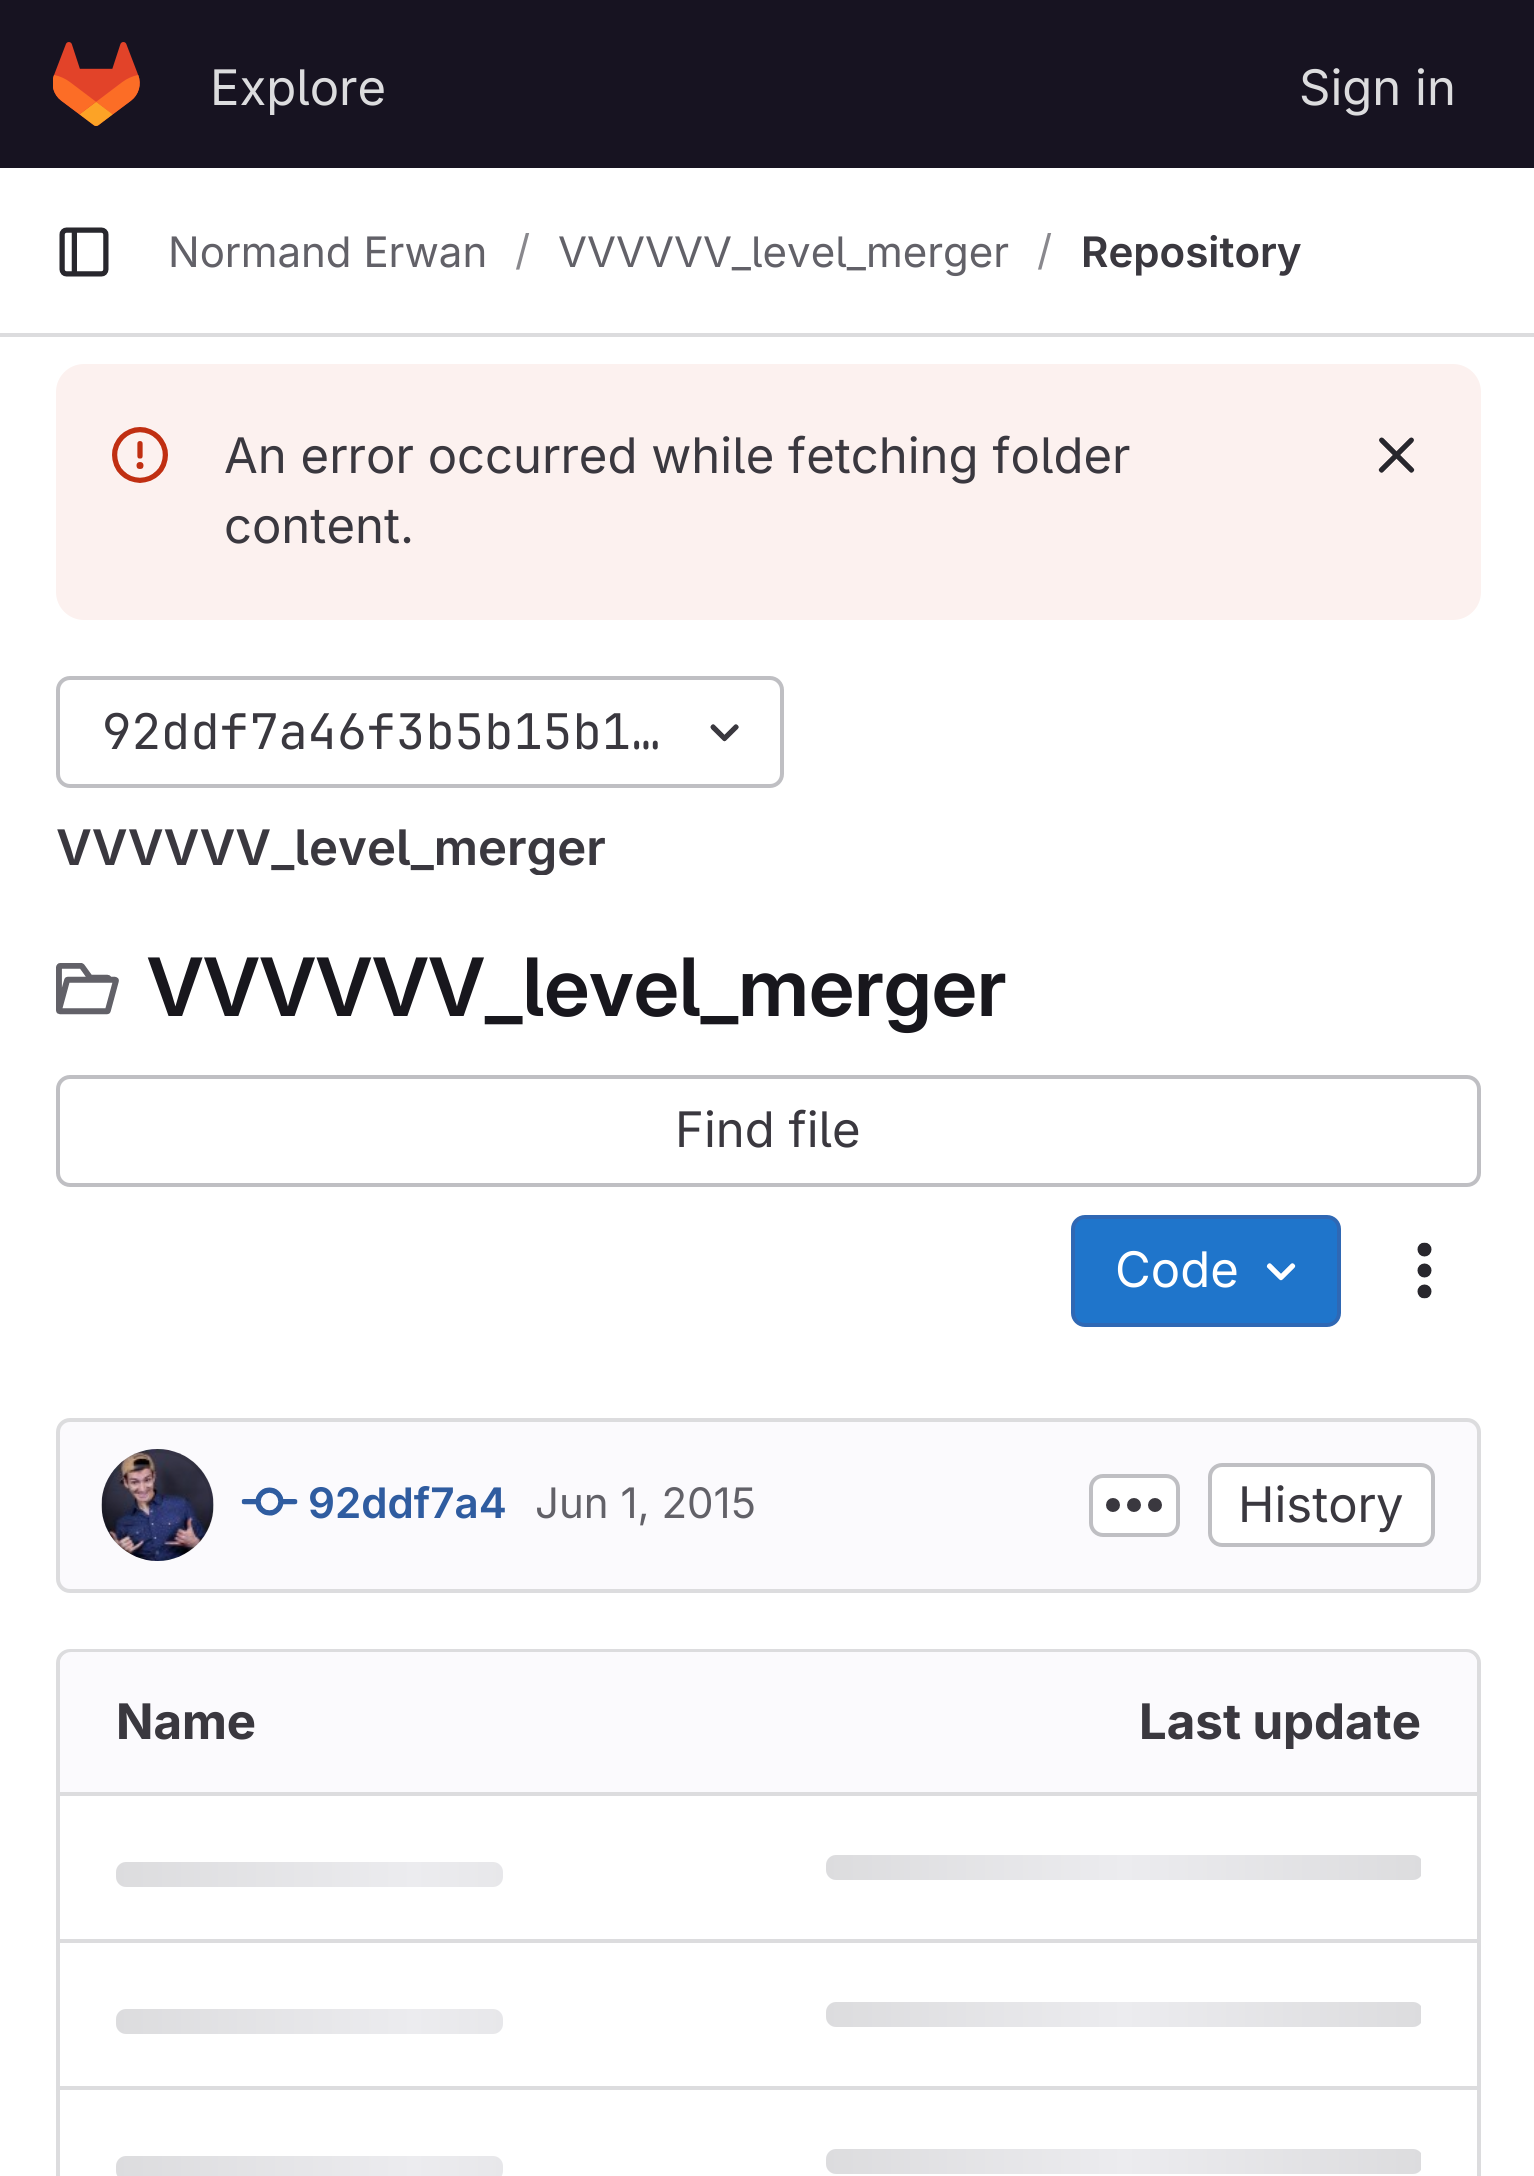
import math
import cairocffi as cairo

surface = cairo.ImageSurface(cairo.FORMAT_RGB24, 1534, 2176)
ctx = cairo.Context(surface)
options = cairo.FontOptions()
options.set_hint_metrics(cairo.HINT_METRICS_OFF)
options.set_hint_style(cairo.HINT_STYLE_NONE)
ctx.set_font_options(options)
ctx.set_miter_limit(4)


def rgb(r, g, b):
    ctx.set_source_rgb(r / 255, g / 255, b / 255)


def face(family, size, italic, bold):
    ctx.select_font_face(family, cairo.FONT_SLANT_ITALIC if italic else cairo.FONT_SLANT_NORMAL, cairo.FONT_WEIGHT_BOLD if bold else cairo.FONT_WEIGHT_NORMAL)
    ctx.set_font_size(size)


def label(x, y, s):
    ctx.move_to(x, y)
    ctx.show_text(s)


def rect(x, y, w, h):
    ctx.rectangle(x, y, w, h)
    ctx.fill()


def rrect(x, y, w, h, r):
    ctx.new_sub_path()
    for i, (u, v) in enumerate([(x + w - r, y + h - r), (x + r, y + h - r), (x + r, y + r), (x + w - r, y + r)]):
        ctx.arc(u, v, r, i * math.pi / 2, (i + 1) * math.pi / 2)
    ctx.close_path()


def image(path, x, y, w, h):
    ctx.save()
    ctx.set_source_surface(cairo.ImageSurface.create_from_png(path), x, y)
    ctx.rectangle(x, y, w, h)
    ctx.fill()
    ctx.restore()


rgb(255, 255, 255)
ctx.paint()
rgb(23, 19, 33)
rect(0, 0, 1534, 168)
image('image0.png', 53, 42, 87, 84)
face('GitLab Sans', 49, 0, 0)
rgb(220, 220, 222)
label(210, 105, 'Explore')
label(1299, 105, 'Sign in')
rect(0, 333, 1534, 4)
image('image1.png', 59, 227, 50, 50)
face('GitLab Sans', 42, 0, 0)
rgb(98, 97, 104)
label(168, 267, 'Normand Erwan')
rgb(137, 136, 141)
label(515, 265, '/')
rgb(98, 97, 104)
label(558, 267, 'VVVVVV_level_merger')
rgb(137, 136, 141)
label(1037, 265, '/')
face('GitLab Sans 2 SemiBold', 42, 0, 0)
rgb(58, 56, 63)
label(1081, 267, 'Repository')
rgb(252, 241, 239)
rrect(56, 364, 1425, 256, 28)
ctx.fill()
image('image2.png', 112, 427, 56, 56)
face('GitLab Sans', 49, 0, 0)
rgb(58, 56, 63)
label(224, 473, 'An error occurred while fetching folder')
label(224, 543, 'content.')
image('image3.png', 1378, 437, 37, 36)
rrect(58, 678, 724, 108, 12)
rgb(191, 191, 195)
ctx.set_line_width(4)
ctx.stroke()
face('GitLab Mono', 49, 0, 0)
rgb(58, 56, 63)
label(102, 749, '92ddf7a46f3b5b15b1…')
image('image4.png', 710, 724, 29, 18)
ctx.save()
rrect(56, 816, 550, 59, 14)
ctx.clip()
face('GitLab Sans 2 SemiBold', 49, 0, 0)
label(56, 865, 'VVVVVV_level_merger')
ctx.restore()
image('image5.png', 56, 963, 63, 52)
face('GitLab Sans SemiBold', 80.5, 0, 0)
rgb(24, 23, 29)
label(147, 1016, 'VVVVVV_level_merger')
rrect(58, 1077, 1421, 108, 12)
rgb(191, 191, 195)
ctx.stroke()
face('GitLab Sans', 49, 0, 0)
rgb(58, 56, 63)
label(675, 1147, 'Find file')
rgb(31, 117, 203)
rrect(1073, 1217, 266, 108, 12)
ctx.fill_preserve()
rgb(47, 104, 180)
ctx.stroke()
rgb(255, 255, 255)
label(1115, 1287, 'Code')
image('image6.png', 1266, 1263, 30, 18)
image('image7.png', 1417, 1242, 15, 57)
rgb(251, 250, 253)
rrect(58, 1420, 1421, 171, 12)
ctx.fill_preserve()
rgb(220, 220, 222)
ctx.stroke()
image('image8.png', 101, 1449, 113, 112)
ctx.arc(158, 1505, 54, 0, 2 * math.pi)
ctx.set_source_rgba(0.02, 0.02, 0.024, 0.08)
ctx.stroke()
image('image9.png', 241, 1487, 57, 29)
face('GitLab Sans 2 SemiBold', 42, 0, 0)
rgb(47, 92, 160)
label(308, 1518, '92ddf7a4')
face('GitLab Sans', 42, 0, 0)
rgb(98, 97, 104)
label(535, 1518, 'Jun 1, 2015')
rgb(255, 255, 255)
rrect(1091, 1476, 87, 59, 12)
ctx.fill_preserve()
rgb(191, 191, 195)
ctx.stroke()
image('image10.png', 1106, 1498, 56, 14)
rgb(255, 255, 255)
rrect(1210, 1465, 223, 80, 12)
ctx.fill_preserve()
rgb(191, 191, 195)
ctx.stroke()
face('GitLab Sans', 49, 0, 0)
rgb(58, 56, 63)
label(1238, 1522, 'History')
rrect(58, 1651, 1421, 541, 12)
rgb(220, 220, 222)
ctx.stroke()
rgb(251, 250, 253)
ctx.new_path()
ctx.move_to(71, 1652)
ctx.line_to(770, 1652)
ctx.line_to(770, 1792)
ctx.line_to(60, 1792)
ctx.line_to(60, 1663)
ctx.curve_to(60, 1657, 65, 1652, 71, 1652)
ctx.close_path()
ctx.fill()
face('GitLab Sans', 49, 0, 1)
rgb(58, 56, 63)
label(116, 1739, 'Name')
rgb(251, 250, 253)
ctx.new_path()
ctx.move_to(770, 1652)
ctx.line_to(1466, 1652)
ctx.curve_to(1472, 1652, 1477, 1657, 1477, 1663)
ctx.line_to(1477, 1792)
ctx.line_to(770, 1792)
ctx.close_path()
ctx.fill()
rgb(58, 56, 63)
label(1139, 1739, 'Last update')
rgb(220, 220, 222)
rect(60, 1939, 1417, 4)
rect(60, 1792, 1417, 4)
ctx.save()
rrect(826, 1855, 597, 25, 10)
ctx.clip()
gradient = cairo.LinearGradient(826, 1855, 1423, 1855)
gradient.add_color_stop_rgba(0, 0.863, 0.863, 0.871, 1)
gradient.add_color_stop_rgba(0.5, 0.925, 0.925, 0.937, 1)
gradient.add_color_stop_rgba(1, 0.863, 0.863, 0.871, 1)
ctx.set_source(gradient)
ctx.new_path()
ctx.move_to(836, 1855)
ctx.line_to(1421, 1855)
ctx.line_to(1421, 1880)
ctx.line_to(836, 1880)
ctx.curve_to(830.5, 1880, 826, 1875.5, 826, 1870)
ctx.line_to(826, 1865)
ctx.curve_to(826, 1859.5, 830.5, 1855, 836, 1855)
ctx.close_path()
ctx.fill()
ctx.restore()
gradient = cairo.LinearGradient(116, 1862, 712, 1862)
gradient.add_color_stop_rgba(0, 0.863, 0.863, 0.871, 1)
gradient.add_color_stop_rgba(0.5, 0.925, 0.925, 0.937, 1)
gradient.add_color_stop_rgba(1, 0.863, 0.863, 0.871, 1)
ctx.set_source(gradient)
rrect(116, 1862, 387, 25, 10)
ctx.fill()
rgb(220, 220, 222)
rect(60, 2086, 1417, 4)
gradient = cairo.LinearGradient(116, 2009, 712, 2009)
gradient.add_color_stop_rgba(0, 0.863, 0.863, 0.871, 1)
gradient.add_color_stop_rgba(0.5, 0.925, 0.925, 0.937, 1)
gradient.add_color_stop_rgba(1, 0.863, 0.863, 0.871, 1)
ctx.set_source(gradient)
rrect(116, 2009, 387, 25, 10)
ctx.fill()
ctx.save()
rrect(826, 2002, 597, 25, 10)
ctx.clip()
gradient = cairo.LinearGradient(826, 2002, 1423, 2002)
gradient.add_color_stop_rgba(0, 0.863, 0.863, 0.871, 1)
gradient.add_color_stop_rgba(0.5, 0.925, 0.925, 0.937, 1)
gradient.add_color_stop_rgba(1, 0.863, 0.863, 0.871, 1)
ctx.set_source(gradient)
ctx.new_path()
ctx.move_to(836, 2002)
ctx.line_to(1421, 2002)
ctx.line_to(1421, 2027)
ctx.line_to(836, 2027)
ctx.curve_to(830.5, 2027, 826, 2022.5, 826, 2017)
ctx.line_to(826, 2012)
ctx.curve_to(826, 2006.5, 830.5, 2002, 836, 2002)
ctx.close_path()
ctx.fill()
ctx.restore()
gradient = cairo.LinearGradient(116, 2156, 712, 2156)
gradient.add_color_stop_rgba(0, 0.863, 0.863, 0.871, 1)
gradient.add_color_stop_rgba(0.5, 0.925, 0.925, 0.937, 1)
gradient.add_color_stop_rgba(1, 0.863, 0.863, 0.871, 1)
ctx.set_source(gradient)
rrect(116, 2156, 387, 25, 10)
ctx.fill()
ctx.save()
rrect(826, 2149, 597, 25, 10)
ctx.clip()
gradient = cairo.LinearGradient(826, 2149, 1423, 2149)
gradient.add_color_stop_rgba(0, 0.863, 0.863, 0.871, 1)
gradient.add_color_stop_rgba(0.5, 0.925, 0.925, 0.937, 1)
gradient.add_color_stop_rgba(1, 0.863, 0.863, 0.871, 1)
ctx.set_source(gradient)
ctx.new_path()
ctx.move_to(836, 2149)
ctx.line_to(1421, 2149)
ctx.line_to(1421, 2174)
ctx.line_to(836, 2174)
ctx.curve_to(830.5, 2174, 826, 2169.5, 826, 2164)
ctx.line_to(826, 2159)
ctx.curve_to(826, 2153.5, 830.5, 2149, 836, 2149)
ctx.close_path()
ctx.fill()
ctx.restore()
surface.write_to_png('render.png')
